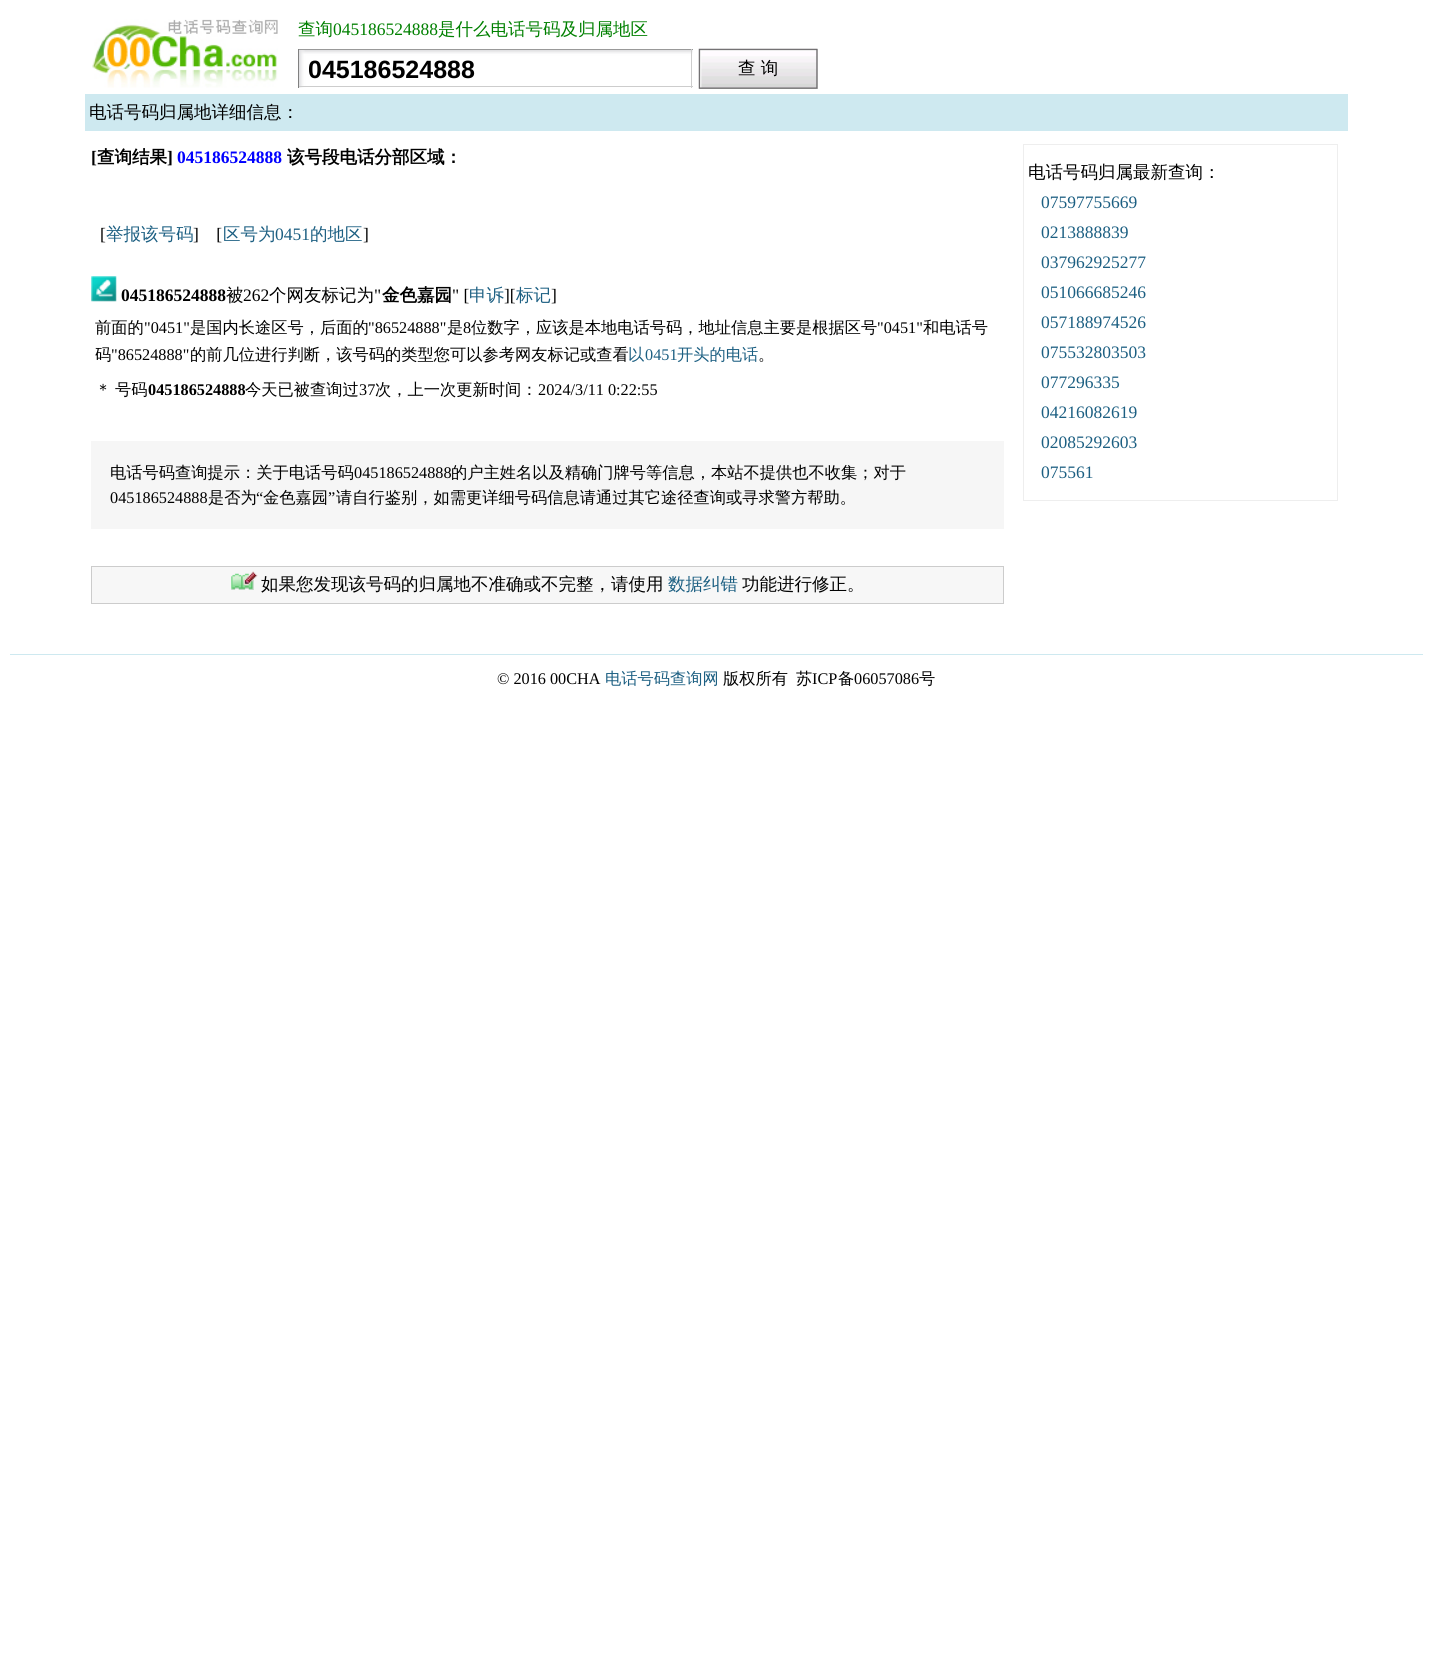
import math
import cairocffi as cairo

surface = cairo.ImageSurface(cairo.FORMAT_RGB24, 1432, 1674)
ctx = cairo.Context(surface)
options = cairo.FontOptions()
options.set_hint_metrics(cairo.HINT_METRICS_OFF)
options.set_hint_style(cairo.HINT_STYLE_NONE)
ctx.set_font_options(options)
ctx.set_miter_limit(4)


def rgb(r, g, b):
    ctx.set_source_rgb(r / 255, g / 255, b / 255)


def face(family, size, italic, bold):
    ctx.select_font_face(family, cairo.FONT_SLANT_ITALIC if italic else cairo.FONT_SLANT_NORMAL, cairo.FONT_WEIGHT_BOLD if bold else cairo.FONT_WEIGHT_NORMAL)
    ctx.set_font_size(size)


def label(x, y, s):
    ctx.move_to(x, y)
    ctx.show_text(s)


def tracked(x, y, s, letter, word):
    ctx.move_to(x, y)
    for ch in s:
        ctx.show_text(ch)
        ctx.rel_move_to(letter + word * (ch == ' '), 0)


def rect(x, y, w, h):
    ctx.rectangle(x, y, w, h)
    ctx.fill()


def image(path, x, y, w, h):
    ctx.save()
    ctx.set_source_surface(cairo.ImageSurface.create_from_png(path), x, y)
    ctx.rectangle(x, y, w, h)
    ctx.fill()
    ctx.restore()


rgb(255, 255, 255)
ctx.paint()
image('image0.png', 92, 19, 186, 69)
face('WenQuanYi Zen Hei Medium', 17.5, 0, 0)
rgb(0, 128, 0)
label(298, 35, '查询')
face('Liberation Serif', 17.5, 0, 0)
label(333, 35, '045186524888')
face('WenQuanYi Zen Hei Medium', 17.5, 0, 0)
label(438, 35, '是什么电话号码及归属地区')
image('image1.png', 299, 50, 394, 38)
rgb(153, 153, 153)
rect(298, 49, 395, 1)
rgb(205, 205, 205)
rect(691, 49, 1, 39)
rect(298, 86, 395, 1)
rgb(128, 128, 128)
rect(298, 49, 1, 39)
face('Liberation Sans', 25, 0, 1)
rgb(0, 0, 0)
label(308, 78, '045186524888')
rgb(204, 204, 204)
rect(699, 49, 119, 40)
image('image2.png', 698, 48, 120, 41)
face('WenQuanYi Zen Hei Medium', 17.5, 0, 0)
rgb(0, 0, 0)
label(738, 74, '查 询')
rgb(206, 233, 240)
rect(85, 94, 1263, 37)
rgb(0, 0, 0)
label(89, 118, '电话号码归属地详细信息：')
face('Liberation Serif', 17.5, 0, 1)
label(91, 163, '[')
face('WenQuanYi Zen Hei', 17.5, 0, 1)
label(97, 163, '查询结果')
face('Liberation Serif', 17.5, 0, 1)
label(167, 163, ']')
rgb(0, 0, 255)
label(177, 163, '045186524888')
face('WenQuanYi Zen Hei', 17.5, 0, 1)
rgb(0, 0, 0)
label(287, 163, '该号段电话分部区域：')
face('Liberation Serif', 17.5, 0, 0)
label(100, 240, '[')
face('WenQuanYi Zen Hei Medium', 17.5, 0, 0)
rgb(28, 95, 130)
label(106, 240, '举报该号码')
face('Liberation Serif', 17.5, 0, 0)
rgb(0, 0, 0)
label(193, 240, ']    [')
face('WenQuanYi Zen Hei Medium', 17.5, 0, 0)
rgb(28, 95, 130)
label(223, 240, '区号为')
face('Liberation Serif', 17.5, 0, 0)
label(275, 240, '0451')
face('WenQuanYi Zen Hei Medium', 17.5, 0, 0)
label(310, 240, '的地区')
face('Liberation Serif', 17.5, 0, 0)
rgb(0, 0, 0)
label(363, 240, ']')
image('image3.png', 91, 276, 26, 26)
face('Liberation Serif', 17.5, 0, 1)
label(121, 301, '045186524888')
face('WenQuanYi Zen Hei Medium', 17.5, 0, 0)
label(226, 301, '被')
face('Liberation Serif', 17.5, 0, 0)
label(243, 301, '262')
face('WenQuanYi Zen Hei Medium', 17.5, 0, 0)
label(269, 301, '个网友标记为')
face('Liberation Serif', 17.5, 0, 0)
label(374, 301, '"')
face('WenQuanYi Zen Hei', 17.5, 0, 1)
label(382, 301, '金色嘉园')
face('Liberation Serif', 17.5, 0, 0)
label(452, 301, '" [')
face('WenQuanYi Zen Hei Medium', 17.5, 0, 0)
rgb(28, 95, 130)
label(469, 301, '申诉')
face('Liberation Serif', 17.5, 0, 0)
rgb(0, 0, 0)
label(504, 301, '][')
face('WenQuanYi Zen Hei Medium', 17.5, 0, 0)
rgb(28, 95, 130)
label(516, 301, '标记')
face('Liberation Serif', 17.5, 0, 0)
rgb(0, 0, 0)
label(551, 301, ']')
face('WenQuanYi Zen Hei Medium', 16.25, 0, 0)
label(95, 333, '前面的')
face('Liberation Serif', 16.25, 0, 0)
label(144, 333, '"0451"')
face('WenQuanYi Zen Hei Medium', 16.25, 0, 0)
label(190, 333, '是国内长途区号，后面的')
face('Liberation Serif', 16.25, 0, 0)
label(368, 333, '"86524888"')
face('WenQuanYi Zen Hei Medium', 16.25, 0, 0)
label(447, 333, '是')
face('Liberation Serif', 16.25, 0, 0)
label(463, 333, '8')
face('WenQuanYi Zen Hei Medium', 16.25, 0, 0)
label(471, 333, '位数字，应该是本地电话号码，地址信息主要是根据区号')
face('Liberation Serif', 16.25, 0, 0)
label(877, 333, '"0451"')
face('WenQuanYi Zen Hei Medium', 16.25, 0, 0)
label(923, 333, '和电话号')
label(95, 360, '码')
face('Liberation Serif', 16.25, 0, 0)
label(111, 360, '"86524888"')
face('WenQuanYi Zen Hei Medium', 16.25, 0, 0)
label(190, 360, '的前几位进行判断，该号码的类型您可以参考网友标记或查看')
rgb(28, 95, 130)
label(628, 360, '以')
face('Liberation Serif', 16.25, 0, 0)
label(645, 360, '0451')
face('WenQuanYi Zen Hei Medium', 16.25, 0, 0)
label(677, 360, '开头的电话')
rgb(0, 0, 0)
label(758, 360, '。')
tracked(95, 395, '＊ 号码', 0, -1)
face('Liberation Serif', 16.25, 0, 1)
label(148, 395, '045186524888')
face('WenQuanYi Zen Hei Medium', 16.25, 0, 0)
label(245, 395, '今天已被查询过')
face('Liberation Serif', 16.25, 0, 0)
label(359, 395, '37')
face('WenQuanYi Zen Hei Medium', 16.25, 0, 0)
label(375, 395, '次，上一次更新时间：')
face('Liberation Serif', 16.25, 0, 0)
label(538, 395, '2024/3/11 0:22:55')
rgb(246, 246, 246)
rect(91, 441, 913, 88)
face('WenQuanYi Zen Hei Medium', 16.25, 0, 0)
rgb(0, 0, 0)
label(110, 478, '电话号码查询提示：关于电话号码')
face('Liberation Serif', 16.25, 0, 0)
label(354, 478, '045186524888')
face('WenQuanYi Zen Hei Medium', 16.25, 0, 0)
label(451, 478, '的户主姓名以及精确门牌号等信息，本站不提供也不收集；对于')
face('Liberation Serif', 16.25, 0, 0)
label(110, 503, '045186524888')
face('WenQuanYi Zen Hei Medium', 16.25, 0, 0)
label(208, 503, '是否为')
face('Liberation Serif', 16.25, 0, 0)
label(256, 503, '“')
face('WenQuanYi Zen Hei Medium', 16.25, 0, 0)
label(263, 503, '金色嘉园')
face('Liberation Serif', 16.25, 0, 0)
label(328, 503, '”')
face('WenQuanYi Zen Hei Medium', 16.25, 0, 0)
label(336, 503, '请自行鉴别，如需更详细号码信息请通过其它途径查询或寻求警方帮助。')
rgb(247, 247, 247)
ctx.rectangle(91.5, 566.5, 912, 37)
ctx.fill_preserve()
rgb(204, 204, 204)
ctx.set_line_width(1)
ctx.stroke()
image('image4.png', 231, 571, 27, 19)
face('WenQuanYi Zen Hei Medium', 17.5, 0, 0)
rgb(0, 0, 0)
label(261, 590, '如果您发现该号码的归属地不准确或不完整，请使用')
rgb(28, 95, 130)
label(668, 590, '数据纠错')
rgb(0, 0, 0)
label(742, 590, '功能进行修正。')
ctx.rectangle(1023.5, 144.5, 314, 356)
rgb(238, 238, 238)
ctx.stroke()
rgb(0, 0, 0)
label(1028, 178, '电话号码归属最新查询：')
face('Liberation Serif', 17.5, 0, 0)
rgb(28, 95, 130)
label(1041, 208, '07597755669')
label(1041, 238, '0213888839')
label(1041, 268, '037962925277')
label(1041, 298, '051066685246')
label(1041, 328, '057188974526')
label(1041, 358, '075532803503')
label(1041, 388, '077296335')
label(1041, 418, '04216082619')
label(1041, 448, '02085292603')
label(1041, 478, '075561')
rgb(206, 233, 240)
rect(10, 654, 1413, 1)
face('Liberation Serif', 16.25, 0, 0)
rgb(0, 0, 0)
label(497, 684, '© 2016 00CHA')
face('WenQuanYi Zen Hei Medium', 16.25, 0, 0)
rgb(28, 95, 130)
label(605, 684, '电话号码查询网')
rgb(0, 0, 0)
label(723, 684, '版权所有')
label(796, 684, '苏')
face('Liberation Serif', 16.25, 0, 0)
label(812, 684, 'ICP')
face('WenQuanYi Zen Hei Medium', 16.25, 0, 0)
label(838, 684, '备')
face('Liberation Serif', 16.25, 0, 0)
label(854, 684, '06057086')
face('WenQuanYi Zen Hei Medium', 16.25, 0, 0)
label(919, 684, '号')
surface.write_to_png('render.png')
